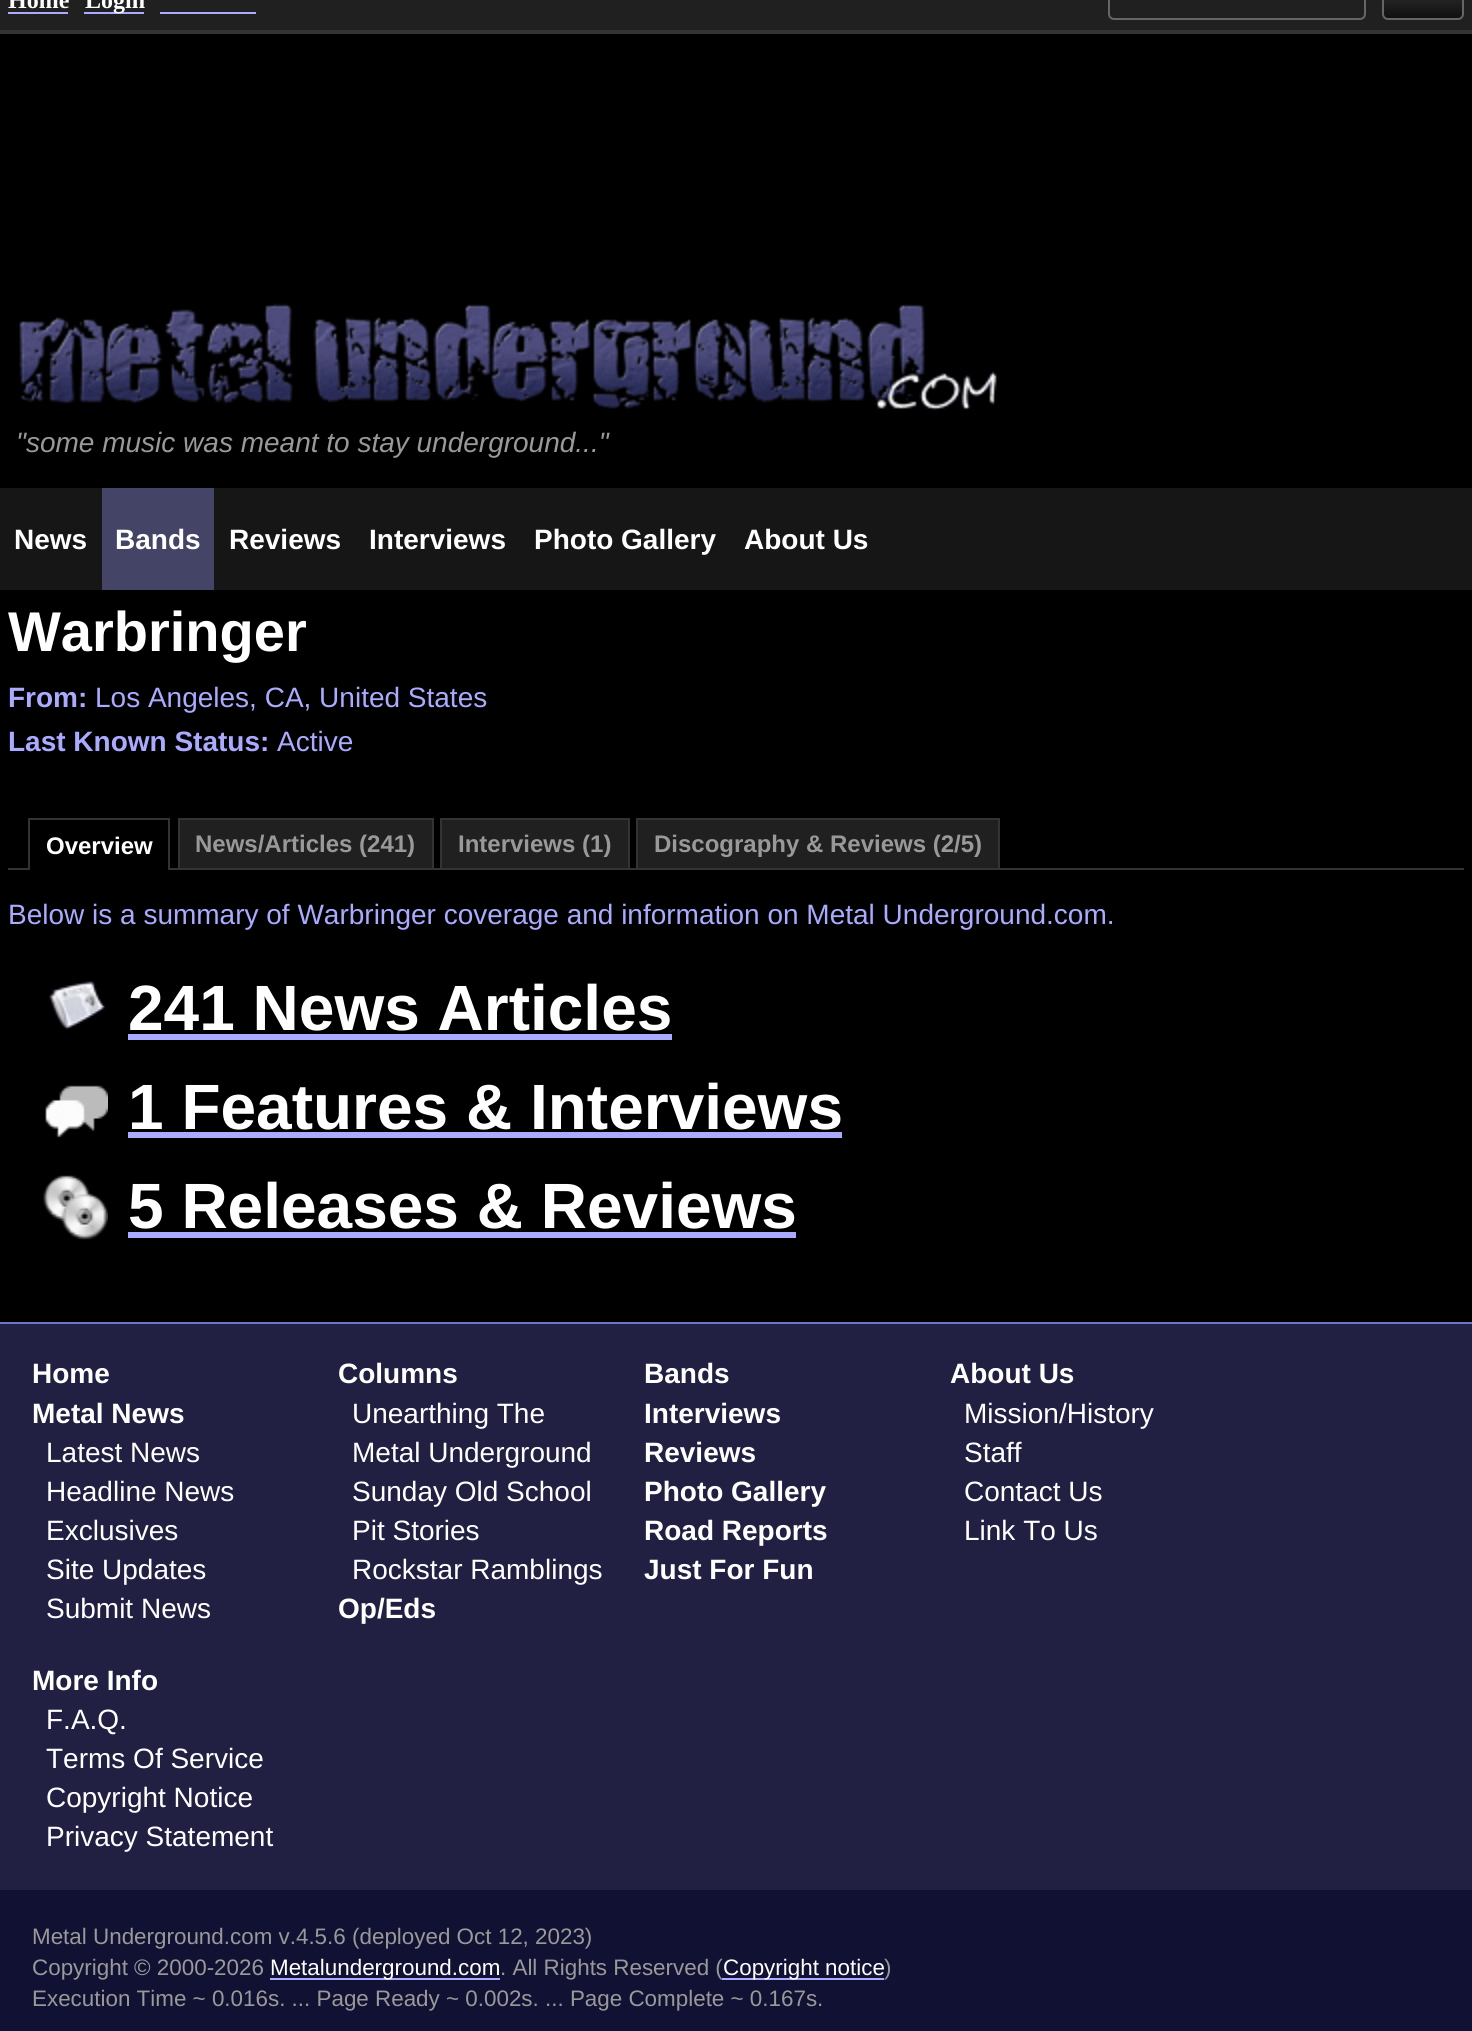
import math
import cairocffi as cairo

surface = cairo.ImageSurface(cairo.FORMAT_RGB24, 1472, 2031)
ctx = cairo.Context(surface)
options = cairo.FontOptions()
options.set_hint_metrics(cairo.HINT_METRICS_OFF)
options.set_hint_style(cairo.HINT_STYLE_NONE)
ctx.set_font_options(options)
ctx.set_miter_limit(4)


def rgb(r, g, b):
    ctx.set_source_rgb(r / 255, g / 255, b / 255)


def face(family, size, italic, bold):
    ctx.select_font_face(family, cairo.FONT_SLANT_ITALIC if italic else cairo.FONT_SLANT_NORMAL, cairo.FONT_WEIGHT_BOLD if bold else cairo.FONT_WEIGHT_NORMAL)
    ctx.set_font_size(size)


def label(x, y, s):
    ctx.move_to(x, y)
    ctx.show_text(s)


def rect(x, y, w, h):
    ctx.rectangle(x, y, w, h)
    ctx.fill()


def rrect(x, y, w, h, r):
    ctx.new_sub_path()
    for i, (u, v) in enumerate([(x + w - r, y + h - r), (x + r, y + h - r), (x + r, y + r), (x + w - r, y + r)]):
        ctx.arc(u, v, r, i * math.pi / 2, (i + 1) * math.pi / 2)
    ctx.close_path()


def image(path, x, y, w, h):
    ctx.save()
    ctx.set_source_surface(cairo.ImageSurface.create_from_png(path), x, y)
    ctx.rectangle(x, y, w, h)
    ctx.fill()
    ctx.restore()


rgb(17, 17, 51)
ctx.paint()
rgb(33, 32, 33)
rect(0, 0, 1472, 30)
rgb(51, 51, 51)
rect(0, 30, 1472, 4)
face('Liberation Serif', 24, 0, 1)
rgb(255, 255, 255)
label(8, 8, 'Home')
rgb(170, 170, 255)
rect(8, 12, 60, 2)
rect(84, 12, 60, 2)
rgb(255, 255, 255)
label(85, 8, 'Login')
rgb(170, 170, 255)
rect(160, 12, 96, 2)
rrect(1109, -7, 256, 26, 5)
rgb(102, 102, 102)
ctx.stroke()
ctx.save()
rrect(1382, -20, 82, 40, 6)
ctx.clip()
gradient = cairo.LinearGradient(1423, -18, 1423, 18)
gradient.add_color_stop_rgba(0, 0.2, 0.2, 0.2, 1)
gradient.add_color_stop_rgba(1, 0.067, 0.067, 0.067, 1)
ctx.set_source(gradient)
rect(1382, 0, 82, 18)
ctx.restore()
rrect(1383, -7, 80, 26, 5)
ctx.stroke()
rgb(0, 0, 0)
rect(0, 34, 1472, 1288)
image('image0.png', 19, 303, 979, 108)
face('Liberation Sans', 28, 1, 0)
rgb(153, 153, 153)
label(16, 452, '"some music was meant to stay underground..."')
rgb(23, 22, 23)
rect(0, 488, 1472, 102)
face('Liberation Sans', 28, 0, 1)
rgb(255, 255, 255)
label(14, 549, 'News')
rgb(68, 68, 102)
rect(102, 488, 112, 102)
rgb(255, 255, 255)
label(115, 549, 'Bands')
label(229, 549, 'Reviews')
label(369, 549, 'Interviews')
label(534, 549, 'Photo Gallery')
label(744, 549, 'About Us')
face('Liberation Sans', 56, 0, 1)
label(8, 651, 'Warbringer')
face('Liberation Sans', 28, 0, 1)
rgb(170, 170, 255)
label(8, 707, 'From:')
face('Liberation Sans', 28, 0, 0)
label(95, 707, 'Los Angeles, CA, United States')
face('Liberation Sans', 28, 0, 1)
label(8, 751, 'Last Known Status:')
face('Liberation Sans', 28, 0, 0)
label(277, 751, 'Active')
rgb(51, 51, 51)
rect(8, 868, 1456, 2)
face('Liberation Sans', 24, 0, 1)
rgb(255, 255, 255)
label(46, 854, 'Overview')
rgb(0, 0, 0)
rect(30, 868, 138, 2)
rgb(51, 51, 51)
rect(28, 818, 142, 2)
rect(168, 818, 2, 52)
rect(28, 818, 2, 52)
rgb(33, 32, 33)
rect(180, 820, 252, 48)
rgb(153, 153, 153)
label(195, 852, 'News/Articles (241)')
rgb(51, 51, 51)
rect(178, 818, 256, 2)
rect(432, 818, 2, 50)
rect(178, 818, 2, 50)
rgb(33, 32, 33)
rect(442, 820, 186, 48)
rgb(153, 153, 153)
label(458, 852, 'Interviews (1)')
rgb(51, 51, 51)
rect(440, 818, 190, 2)
rect(628, 818, 2, 50)
rect(440, 818, 2, 50)
rgb(33, 32, 33)
rect(638, 820, 360, 48)
rgb(153, 153, 153)
label(654, 852, 'Discography & Reviews (2/5)')
rgb(51, 51, 51)
rect(636, 818, 364, 2)
rect(998, 818, 2, 50)
rect(636, 818, 2, 50)
face('Liberation Sans', 28, 0, 0)
rgb(170, 170, 255)
label(8, 924, 'Below is a summary of Warbringer coverage and information on Metal Underground.com.')
image('image1.png', 49, 981, 56, 49)
face('Liberation Sans', 64, 0, 1)
rgb(255, 255, 255)
label(128, 1030, '241 News Articles')
rgb(170, 170, 255)
rect(128, 1034, 544, 6)
image('image2.png', 45, 1085, 63, 53)
rgb(255, 255, 255)
label(128, 1129, '1 Features & Interviews')
rgb(170, 170, 255)
rect(128, 1132, 714, 6)
image('image3.png', 43, 1175, 65, 65)
rgb(255, 255, 255)
label(128, 1228, '5 Releases & Reviews')
rgb(170, 170, 255)
rect(128, 1232, 668, 6)
rgb(33, 32, 66)
rect(0, 1324, 1472, 566)
rgb(102, 119, 204)
rect(0, 1322, 1472, 2)
face('Liberation Sans', 28, 0, 1)
rgb(255, 255, 255)
label(32, 1383, 'Home')
label(32, 1423, 'Metal News')
face('Liberation Sans', 28, 0, 0)
label(46, 1462, 'Latest News')
label(46, 1501, 'Headline News')
label(46, 1540, 'Exclusives')
label(46, 1579, 'Site Updates')
label(46, 1618, 'Submit News')
face('Liberation Sans', 28, 0, 1)
label(338, 1383, 'Columns')
face('Liberation Sans', 28, 0, 0)
label(352, 1423, 'Unearthing The')
label(352, 1462, 'Metal Underground')
label(352, 1501, 'Sunday Old School')
label(352, 1540, 'Pit Stories')
label(352, 1579, 'Rockstar Ramblings')
face('Liberation Sans', 28, 0, 1)
label(338, 1618, 'Op/Eds')
label(644, 1383, 'Bands')
label(644, 1423, 'Interviews')
label(644, 1462, 'Reviews')
label(644, 1501, 'Photo Gallery')
label(644, 1540, 'Road Reports')
label(644, 1579, 'Just For Fun')
label(950, 1383, 'About Us')
face('Liberation Sans', 28, 0, 0)
label(964, 1423, 'Mission/History')
label(964, 1462, 'Staff')
label(964, 1501, 'Contact Us')
label(964, 1540, 'Link To Us')
face('Liberation Sans', 28, 0, 1)
label(32, 1690, 'More Info')
face('Liberation Sans', 28, 0, 0)
label(46, 1729, 'F.A.Q.')
label(46, 1768, 'Terms Of Service')
label(46, 1807, 'Copyright Notice')
label(46, 1846, 'Privacy Statement')
face('Liberation Sans', 22.4, 0, 0)
rgb(153, 153, 153)
label(32, 1944, 'Metal Underground.com v.4.5.6')
label(352, 1944, '(deployed Oct 12, 2023)')
label(32, 1975, 'Copyright © 2000-2026')
rgb(170, 170, 255)
rect(270, 1978, 230, 2)
rgb(255, 255, 255)
label(270, 1975, 'Metalunderground.com')
rgb(153, 153, 153)
label(500, 1975, '. All Rights Reserved (')
rgb(170, 170, 255)
rect(722, 1978, 162, 2)
rgb(255, 255, 255)
label(723, 1975, 'Copyright notice')
rgb(153, 153, 153)
label(884, 1975, ')')
label(32, 2006, 'Execution Time ~ 0.016s. ... Page Ready ~ 0.002s. ... Page Complete ~ 0.167s.')
surface.write_to_png('render.png')
